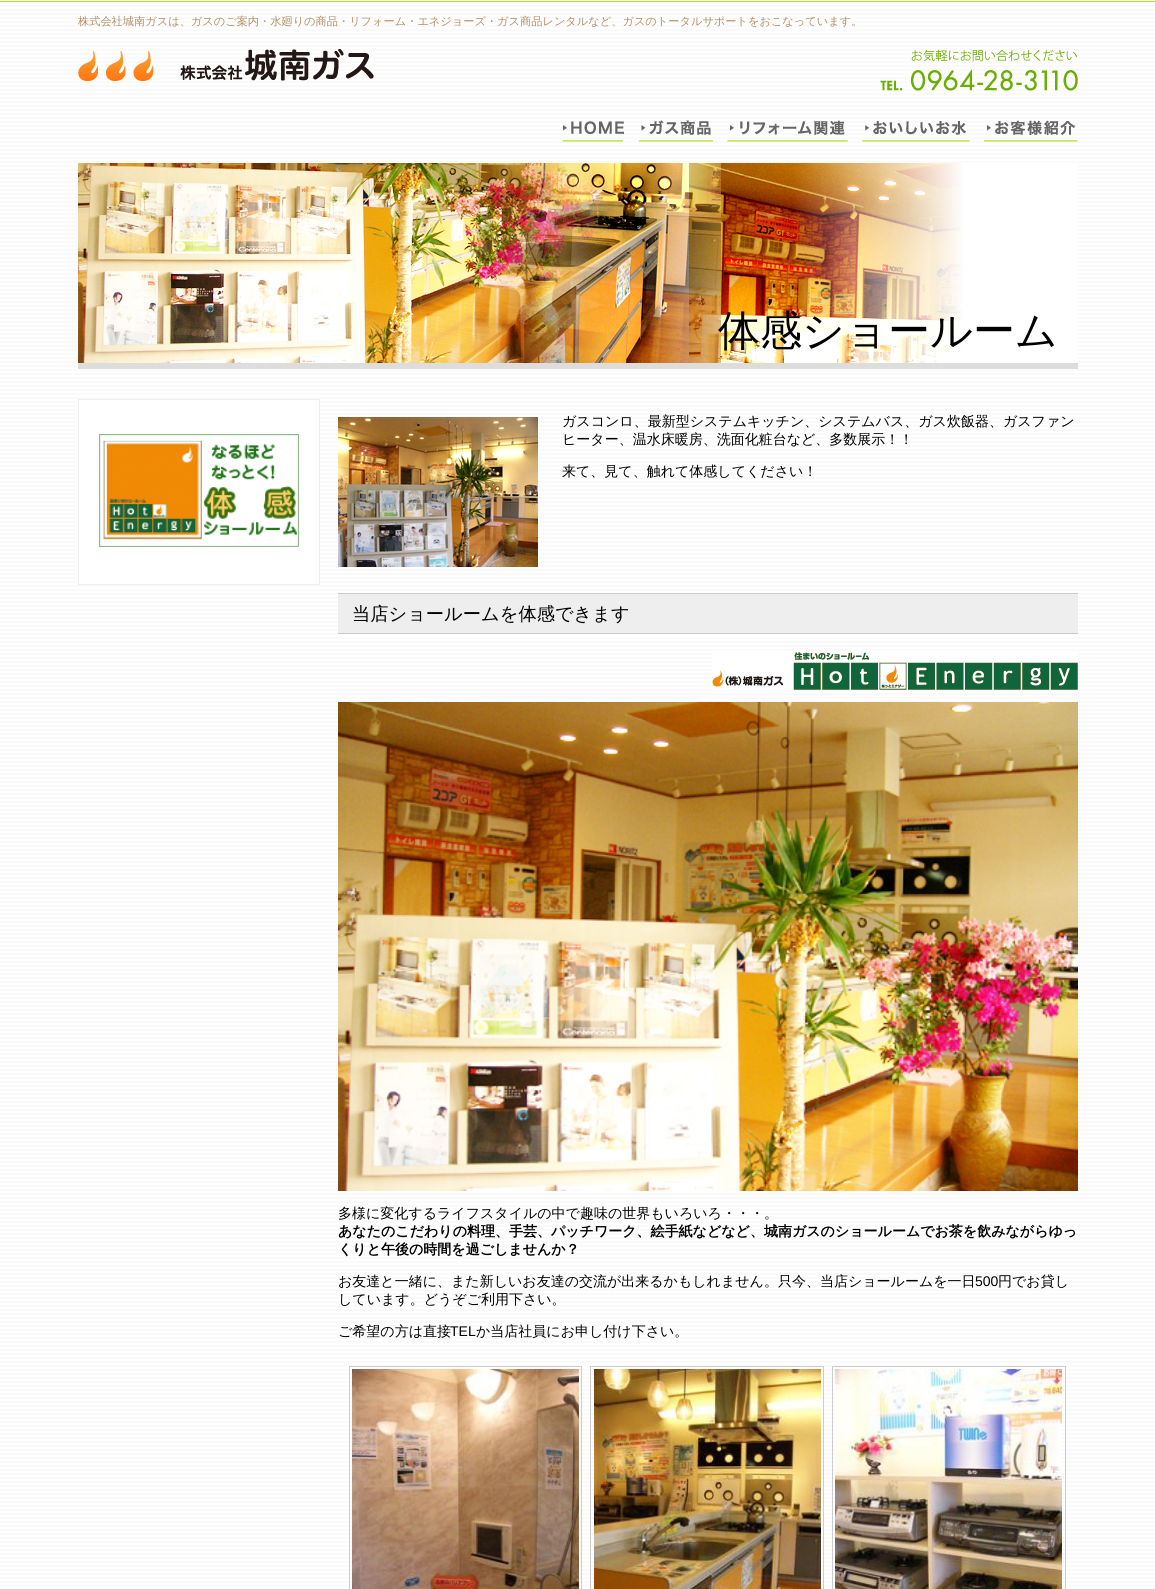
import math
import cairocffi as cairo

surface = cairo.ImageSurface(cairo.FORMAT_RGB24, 1155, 1589)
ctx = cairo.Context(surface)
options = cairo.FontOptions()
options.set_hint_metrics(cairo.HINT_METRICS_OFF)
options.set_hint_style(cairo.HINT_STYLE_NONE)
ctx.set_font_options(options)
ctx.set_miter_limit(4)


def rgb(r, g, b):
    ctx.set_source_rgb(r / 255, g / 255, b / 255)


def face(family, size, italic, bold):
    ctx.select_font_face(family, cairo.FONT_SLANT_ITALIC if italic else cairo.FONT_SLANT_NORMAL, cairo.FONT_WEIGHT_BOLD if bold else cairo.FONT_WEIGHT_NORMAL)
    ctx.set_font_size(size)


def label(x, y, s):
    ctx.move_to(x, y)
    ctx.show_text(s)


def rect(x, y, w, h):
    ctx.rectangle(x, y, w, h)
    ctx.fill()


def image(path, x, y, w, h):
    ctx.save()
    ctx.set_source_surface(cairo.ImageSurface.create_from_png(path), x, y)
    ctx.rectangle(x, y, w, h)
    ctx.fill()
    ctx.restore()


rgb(255, 255, 255)
ctx.paint()
image('image0.png', 0, 2, 1155, 1585)
rgb(174, 225, 40)
rect(0, 1, 1155, 1)
face('WenQuanYi Zen Hei Medium', 11.2, 0, 0)
rgb(181, 142, 100)
label(78, 25, '株式会社城南ガスは、ガスのご案内・水廻りの商品・リフォーム・エネジョーズ・ガス商品レンタルなど、ガスのトータルサポートをおこなっています。')
image('image1.png', 78, 49, 296, 32)
image('image2.png', 880, 49, 198, 42)
image('image3.png', 562, 121, 62, 21)
image('image4.png', 638, 120, 75, 22)
image('image5.png', 727, 120, 121, 22)
image('image6.png', 862, 121, 108, 21)
image('image7.png', 984, 120, 94, 22)
image('image8.png', 78, 163, 1000, 200)
rgb(221, 221, 221)
rect(78, 363, 1000, 6)
face('WenQuanYi Zen Hei Medium', 42, 0, 0)
rgb(0, 0, 0)
label(718, 345, '体感ショールーム')
rgb(255, 255, 255)
rect(79, 401, 240, 182)
ctx.rectangle(78.5, 399.5, 241, 185)
rgb(238, 238, 238)
ctx.set_line_width(1)
ctx.stroke()
image('image9.png', 99, 434, 200, 113)
image('image10.png', 338, 417, 200, 150)
face('WenQuanYi Zen Hei Medium', 14, 0, 0)
rgb(0, 0, 0)
label(562, 426, 'ガスコンロ、最新型システムキッチン、システムバス、ガス炊飯器、ガスファン')
label(562, 444, 'ヒーター、温水床暖房、洗面化粧台など、多数展示！！')
label(562, 476, '来て、見て、触れて体感してください！')
rgb(238, 238, 238)
rect(338, 594, 740, 39)
rgb(204, 204, 204)
rect(338, 593, 740, 1)
rect(338, 633, 740, 1)
face('WenQuanYi Zen Hei Medium', 18.25, 0, 0)
rgb(0, 0, 0)
label(352, 620, '当店ショールームを体感できます')
image('image11.png', 712, 652, 366, 38)
image('image12.png', 338, 702, 740, 489)
face('WenQuanYi Zen Hei Medium', 14, 0, 0)
label(338, 1218, '多様に変化するライフスタイルの中で趣味の世界もいろいろ・・・。')
face('WenQuanYi Zen Hei', 14, 0, 1)
label(338, 1236, 'あなたのこだわりの料理、手芸、パッチワーク、絵手紙などなど、城南ガスのショールームでお茶を飲みながらゆっ')
label(338, 1254, 'くりと午後の時間を過ごしませんか？')
face('WenQuanYi Zen Hei Medium', 14, 0, 0)
label(338, 1286, 'お友達と一緒に、また新しいお友達の交流が出来るかもしれません。只今、当店ショールームを一日')
face('Liberation Sans', 14, 0, 0)
label(975, 1286, '500')
face('WenQuanYi Zen Hei Medium', 14, 0, 0)
label(998, 1286, '円でお貸し')
label(338, 1304, 'しています。どうぞご利用下さい。')
label(338, 1336, 'ご希望の方は直接')
face('Liberation Sans', 14, 0, 0)
label(450, 1336, 'TEL')
face('WenQuanYi Zen Hei Medium', 14, 0, 0)
label(476, 1336, 'か当店社員にお申し付け下さい。')
ctx.rectangle(349.5, 1366.5, 232, 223)
rgb(204, 204, 204)
ctx.stroke()
image('image13.png', 352, 1369, 227, 220)
ctx.rectangle(590.5, 1366.5, 233, 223)
ctx.stroke()
image('image14.png', 594, 1369, 227, 220)
ctx.rectangle(832.5, 1366.5, 233, 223)
ctx.stroke()
image('image15.png', 835, 1369, 227, 220)
surface.write_to_png('render.png')
